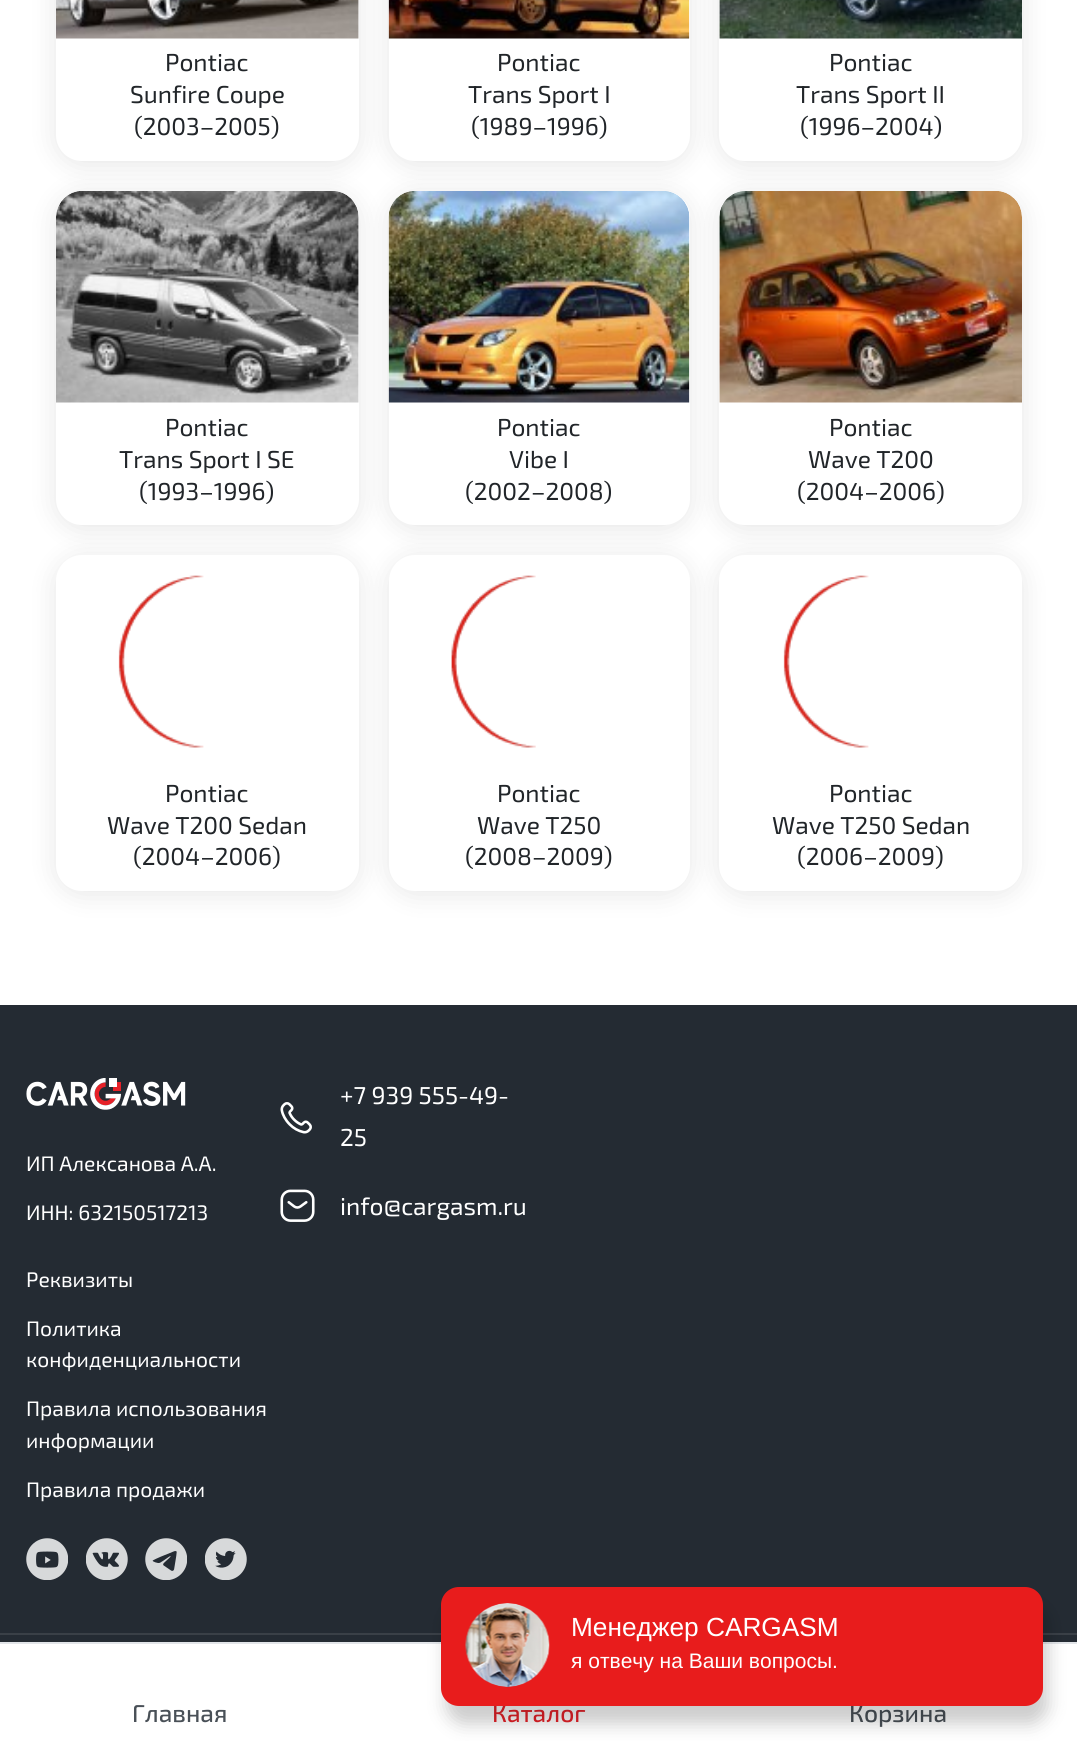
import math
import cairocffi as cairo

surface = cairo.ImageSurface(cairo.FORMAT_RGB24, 1077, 1741)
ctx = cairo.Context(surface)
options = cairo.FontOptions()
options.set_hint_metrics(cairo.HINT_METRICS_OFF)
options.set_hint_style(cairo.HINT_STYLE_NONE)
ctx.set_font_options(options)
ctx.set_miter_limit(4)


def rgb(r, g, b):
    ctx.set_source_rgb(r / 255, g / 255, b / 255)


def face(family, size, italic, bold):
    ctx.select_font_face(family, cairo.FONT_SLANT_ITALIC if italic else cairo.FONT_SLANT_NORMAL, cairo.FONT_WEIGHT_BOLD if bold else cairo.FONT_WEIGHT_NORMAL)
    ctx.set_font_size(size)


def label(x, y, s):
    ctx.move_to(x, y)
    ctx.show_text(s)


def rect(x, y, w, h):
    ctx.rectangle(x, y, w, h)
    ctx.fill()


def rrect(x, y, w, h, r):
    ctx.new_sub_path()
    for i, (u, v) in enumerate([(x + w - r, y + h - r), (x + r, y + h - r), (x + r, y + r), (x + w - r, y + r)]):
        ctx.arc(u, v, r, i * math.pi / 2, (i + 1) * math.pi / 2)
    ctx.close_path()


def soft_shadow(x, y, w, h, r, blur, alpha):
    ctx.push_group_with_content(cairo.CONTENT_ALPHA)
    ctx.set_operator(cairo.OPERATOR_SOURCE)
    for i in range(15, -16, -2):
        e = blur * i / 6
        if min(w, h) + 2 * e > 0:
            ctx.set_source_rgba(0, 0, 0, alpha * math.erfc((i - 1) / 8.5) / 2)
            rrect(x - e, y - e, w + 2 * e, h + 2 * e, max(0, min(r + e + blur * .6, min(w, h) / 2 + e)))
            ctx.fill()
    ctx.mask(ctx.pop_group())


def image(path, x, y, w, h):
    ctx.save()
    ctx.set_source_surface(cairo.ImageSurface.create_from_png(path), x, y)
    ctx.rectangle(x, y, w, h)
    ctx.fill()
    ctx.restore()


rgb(255, 255, 255)
ctx.paint()
rgb(0, 0, 0)
soft_shadow(56, -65, 303, 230, 26, 13, 0.1)
rgb(255, 255, 255)
rrect(56, -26, 303, 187, 26)
ctx.fill()
image('image0.png', 56, 0, 303, 39)
face('Exo 2', 24.5, 0, 0)
rgb(33, 37, 41)
label(165, 71, 'Pontiac')
label(130, 103, 'Sunfire Coupe')
label(134, 135, '(2003–2005)')
rgb(0, 0, 0)
soft_shadow(389, -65, 301, 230, 26, 13, 0.1)
rgb(255, 255, 255)
rrect(389, -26, 301, 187, 26)
ctx.fill()
image('image1.png', 388, 0, 302, 39)
rgb(33, 37, 41)
label(497, 71, 'Pontiac')
label(468, 103, 'Trans Sport I')
label(471, 135, '(1989–1996)')
rgb(0, 0, 0)
soft_shadow(719, -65, 303, 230, 26, 13, 0.1)
rgb(255, 255, 255)
rrect(719, -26, 303, 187, 26)
ctx.fill()
image('image2.png', 719, 0, 303, 39)
rgb(33, 37, 41)
label(829, 71, 'Pontiac')
label(796, 103, 'Trans Sport II')
label(800, 135, '(1996–2004)')
rgb(0, 0, 0)
soft_shadow(56, 194, 303, 335, 26, 13, 0.1)
rgb(255, 255, 255)
rrect(56, 191, 303, 334, 26)
ctx.fill()
image('image3.png', 56, 191, 303, 212)
rgb(33, 37, 41)
label(165, 436, 'Pontiac')
label(119, 468, 'Trans Sport I SE')
label(139, 500, '(1993–1996)')
rgb(0, 0, 0)
soft_shadow(389, 194, 301, 335, 26, 13, 0.1)
rgb(255, 255, 255)
rrect(389, 191, 301, 334, 26)
ctx.fill()
image('image4.png', 388, 191, 302, 212)
rgb(33, 37, 41)
label(497, 436, 'Pontiac')
label(509, 468, 'Vibe I')
label(465, 500, '(2002–2008)')
rgb(0, 0, 0)
soft_shadow(719, 194, 303, 335, 26, 13, 0.1)
rgb(255, 255, 255)
rrect(719, 191, 303, 334, 26)
ctx.fill()
image('image5.png', 719, 191, 303, 212)
rgb(33, 37, 41)
label(829, 436, 'Pontiac')
label(808, 468, 'Wave T200')
label(797, 500, '(2004–2006)')
rgb(0, 0, 0)
soft_shadow(56, 558, 303, 336, 26, 13, 0.1)
rgb(255, 255, 255)
rrect(56, 555, 303, 336, 26)
ctx.fill()
image('image6.png', 118, 575, 86, 173)
rgb(33, 37, 41)
label(165, 802, 'Pontiac')
label(107, 834, 'Wave T200 Sedan')
label(133, 865, '(2004–2006)')
rgb(0, 0, 0)
soft_shadow(389, 558, 301, 336, 26, 13, 0.1)
rgb(255, 255, 255)
rrect(389, 555, 301, 336, 26)
ctx.fill()
image('image7.png', 451, 575, 85, 173)
rgb(33, 37, 41)
label(497, 802, 'Pontiac')
label(477, 834, 'Wave T250')
label(465, 865, '(2008–2009)')
rgb(0, 0, 0)
soft_shadow(719, 558, 303, 336, 26, 13, 0.1)
rgb(255, 255, 255)
rrect(719, 555, 303, 336, 26)
ctx.fill()
image('image6.png', 783, 575, 86, 173)
rgb(33, 37, 41)
label(829, 802, 'Pontiac')
label(772, 834, 'Wave T250 Sedan')
label(797, 865, '(2006–2009)')
rgb(36, 43, 51)
rect(0, 1005, 1077, 637)
image('image8.png', 26, 1078, 160, 32)
face('Exo 2', 21, 0, 0)
rgb(255, 255, 255)
label(26, 1171, 'ИП Алексанова А.А.')
label(26, 1220, 'ИНН: 632150517213')
label(26, 1287, 'Реквизиты')
label(26, 1336, 'Политика')
label(26, 1367, 'конфиденциальности')
label(26, 1416, 'Правила использования')
label(26, 1448, 'информации')
label(26, 1497, 'Правила продажи')
image('image9.png', 26, 1538, 42, 42)
image('image10.png', 86, 1538, 42, 42)
image('image11.png', 145, 1538, 42, 42)
image('image12.png', 205, 1538, 42, 42)
image('image13.png', 280, 1102, 32, 32)
face('Exo 2', 24.5, 0, 0)
label(340, 1104, '+7 939 555-49-')
label(340, 1146, '25')
image('image14.png', 280, 1189, 35, 33)
label(340, 1215, 'info@cargasm.ru')
rgb(58, 64, 71)
rect(0, 1633, 1077, 2)
rgb(226, 229, 233)
rect(0, 1642, 1077, 2)
face('Exo 2 Medium', 24.5, 0, 0)
rgb(73, 80, 87)
label(132, 1722, 'Главная')
rgb(230, 33, 40)
label(492, 1722, 'Каталог')
rgb(73, 80, 87)
label(849, 1722, 'Корзина')
rgb(0, 0, 0)
soft_shadow(446, 1605, 602, 119, 18, 9, 0.2)
rgb(232, 28, 28)
rrect(441, 1587, 602, 119, 18)
ctx.fill()
image('image15.png', 465, 1603, 85, 84)
face('Liberation Sans', 26.25, 0, 0)
rgb(255, 255, 255)
label(571, 1636, 'Менеджер CARGASM')
face('Liberation Sans', 21, 0, 0)
label(571, 1668, 'я отвечу на Ваши вопросы.')
surface.write_to_png('render.png')
